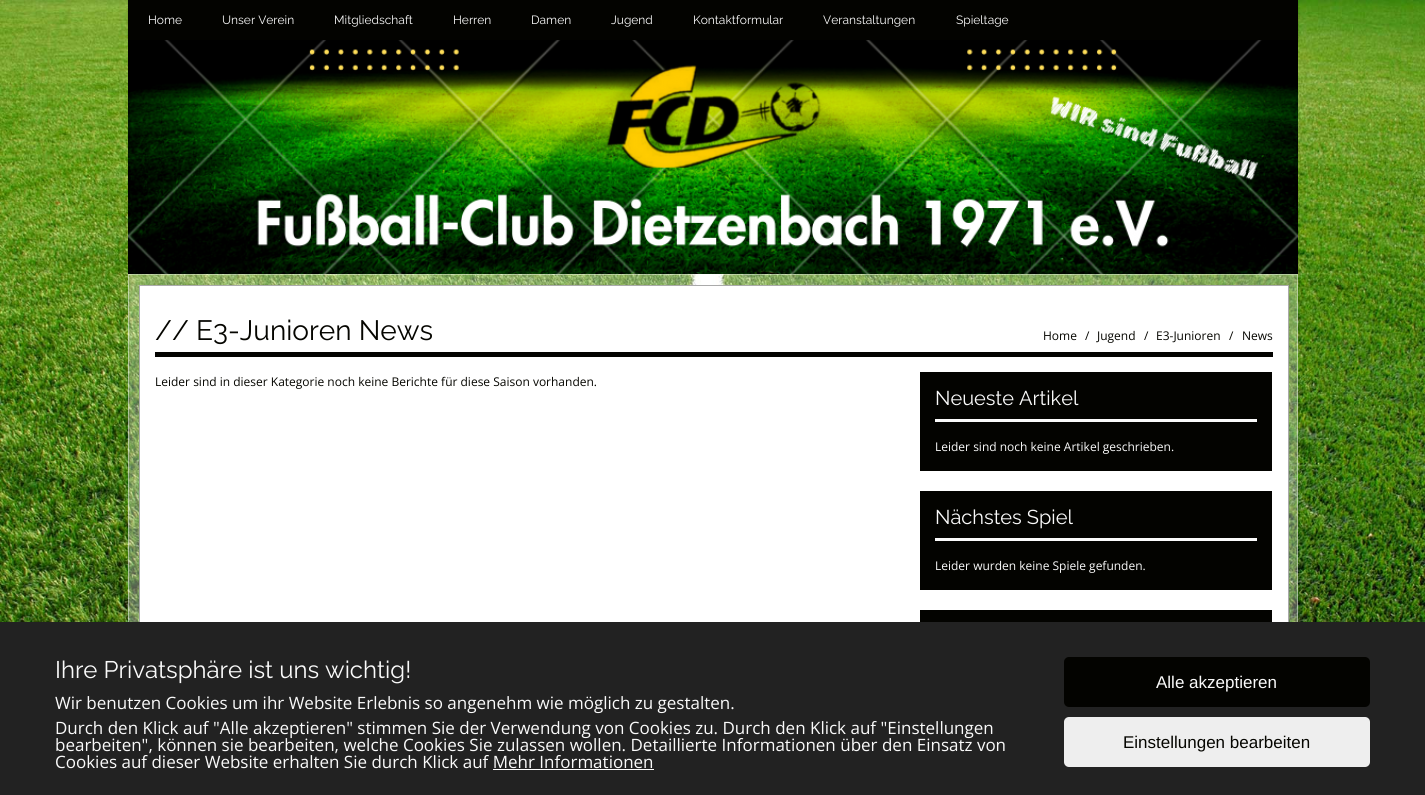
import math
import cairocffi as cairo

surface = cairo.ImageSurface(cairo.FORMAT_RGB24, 1425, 795)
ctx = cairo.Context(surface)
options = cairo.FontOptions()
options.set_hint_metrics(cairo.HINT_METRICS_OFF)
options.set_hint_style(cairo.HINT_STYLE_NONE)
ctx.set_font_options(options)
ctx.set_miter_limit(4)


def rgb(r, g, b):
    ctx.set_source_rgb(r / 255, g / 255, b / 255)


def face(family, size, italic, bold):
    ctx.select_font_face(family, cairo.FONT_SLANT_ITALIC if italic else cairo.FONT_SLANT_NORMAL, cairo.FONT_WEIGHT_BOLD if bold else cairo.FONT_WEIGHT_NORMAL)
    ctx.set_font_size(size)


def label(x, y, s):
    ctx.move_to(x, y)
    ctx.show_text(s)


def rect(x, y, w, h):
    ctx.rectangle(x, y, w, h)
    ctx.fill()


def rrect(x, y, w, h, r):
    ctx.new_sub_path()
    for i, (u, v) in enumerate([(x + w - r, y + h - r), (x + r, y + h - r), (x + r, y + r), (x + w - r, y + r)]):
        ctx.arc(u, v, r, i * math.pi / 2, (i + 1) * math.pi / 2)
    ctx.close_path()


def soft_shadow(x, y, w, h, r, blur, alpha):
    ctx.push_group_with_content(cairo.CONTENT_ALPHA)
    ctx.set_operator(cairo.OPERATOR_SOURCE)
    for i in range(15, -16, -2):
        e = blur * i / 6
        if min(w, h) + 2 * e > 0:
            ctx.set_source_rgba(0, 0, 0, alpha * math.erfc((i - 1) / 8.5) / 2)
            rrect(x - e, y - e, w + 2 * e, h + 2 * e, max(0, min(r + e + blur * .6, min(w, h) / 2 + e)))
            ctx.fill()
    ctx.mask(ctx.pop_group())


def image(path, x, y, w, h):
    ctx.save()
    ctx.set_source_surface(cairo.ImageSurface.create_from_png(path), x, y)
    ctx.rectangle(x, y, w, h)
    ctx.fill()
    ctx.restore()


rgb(255, 255, 255)
ctx.paint()
image('image0.png', 0, 0, 1425, 622)
rgb(3, 3, 0)
rect(128, 0, 1170, 40)
image('image1.png', 128, 40, 1170, 234)
ctx.save()
ctx.set_fill_rule(cairo.FILL_RULE_EVEN_ODD)
ctx.new_path()
ctx.move_to(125, 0)
ctx.line_to(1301, 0)
ctx.line_to(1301, 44)
ctx.line_to(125, 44)
ctx.close_path()
ctx.move_to(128, 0)
ctx.line_to(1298, 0)
ctx.line_to(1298, 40)
ctx.line_to(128, 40)
ctx.close_path()
ctx.clip()
rgb(0, 0, 0)
soft_shadow(128, 1, 1170, 40, 0, 0.5, 0.2)
ctx.restore()
face('Raleway', 12, 0, 0)
rgb(250, 250, 250)
label(148, 24, 'Home')
label(222, 24, 'Unser Verein')
label(334, 24, 'Mitgliedschaft')
label(453, 24, 'Herren')
label(531, 24, 'Damen')
label(611, 24, 'Jugend')
label(693, 24, 'Kontaktformular')
label(823, 24, 'Veranstaltungen')
label(956, 24, 'Spieltage')
ctx.set_source_rgba(1, 1, 1, 0.3)
rect(128, 274, 1170, 348)
ctx.rectangle(128.5, 274.5, 1169, 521)
ctx.set_source_rgba(1, 1, 1, 0.4)
ctx.set_line_width(1)
ctx.stroke()
rgb(255, 255, 255)
rect(140, 286, 1148, 336)
ctx.rectangle(139.5, 285.5, 1149, 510)
rgb(170, 170, 170)
ctx.stroke()
rgb(3, 3, 0)
rect(155, 352, 1118, 5)
face('Raleway', 28, 0, 0)
rgb(5, 5, 0)
label(155, 340, '// E3-Junioren News')
face('Open Sans', 12, 0, 0)
label(1043, 340, 'Home')
label(1085, 340, '/')
label(1097, 340, 'Jugend')
label(1144, 340, '/')
label(1156, 340, 'E3-Junioren')
label(1229, 340, '/')
label(1242, 340, 'News')
label(155, 386, 'Leider sind in dieser Kategorie noch keine Berichte für diese Saison vorhanden.')
rgb(3, 3, 0)
rect(920, 372, 352, 99)
rgb(250, 250, 250)
rect(935, 419, 322, 3)
face('Raleway', 20, 0, 0)
label(935, 405, 'Neueste Artikel')
face('Open Sans', 12, 0, 0)
label(935, 451, 'Leider sind noch keine Artikel geschrieben.')
rgb(3, 3, 0)
rect(920, 491, 352, 99)
rgb(250, 250, 250)
rect(935, 538, 322, 3)
face('Raleway', 20, 0, 0)
label(935, 524, 'Nächstes Spiel')
face('Open Sans', 12, 0, 0)
label(935, 570, 'Leider wurden keine Spiele gefunden.')
rgb(3, 3, 0)
rect(920, 610, 352, 12)
rgb(34, 34, 34)
rect(0, 622, 1425, 173)
face('Raleway', 24, 0, 0)
rgb(250, 250, 250)
label(55, 678, 'Ihre Privatsphäre ist uns wichtig!')
face('Open Sans', 17, 0, 0)
label(55, 709, 'Wir benutzen Cookies um ihr Website Erlebnis so angenehm wie möglich zu gestalten.')
label(55, 734, 'Durch den Klick auf "Alle akzeptieren" stimmen Sie der Verwendung von Cookies zu. Durch den Klick auf "Einstellungen')
label(55, 751, 'bearbeiten", können sie bearbeiten, welche Cookies Sie zulassen wollen. Detaillierte Informationen über den Einsatz von')
label(55, 768, 'Cookies auf dieser Website erhalten Sie durch Klick auf Mehr Informationen')
rgb(255, 255, 255)
rect(493, 769, 161, 1)
rgb(3, 3, 0)
rrect(1064, 657, 306, 50, 5)
ctx.fill()
face('Liberation Sans', 17, 0, 0)
rgb(250, 250, 250)
label(1156, 688, 'Alle akzeptieren')
rgb(238, 238, 238)
rrect(1064, 717, 306, 50, 5)
ctx.fill()
rgb(5, 5, 0)
label(1123, 748, 'Einstellungen bearbeiten')
surface.write_to_png('render.png')
